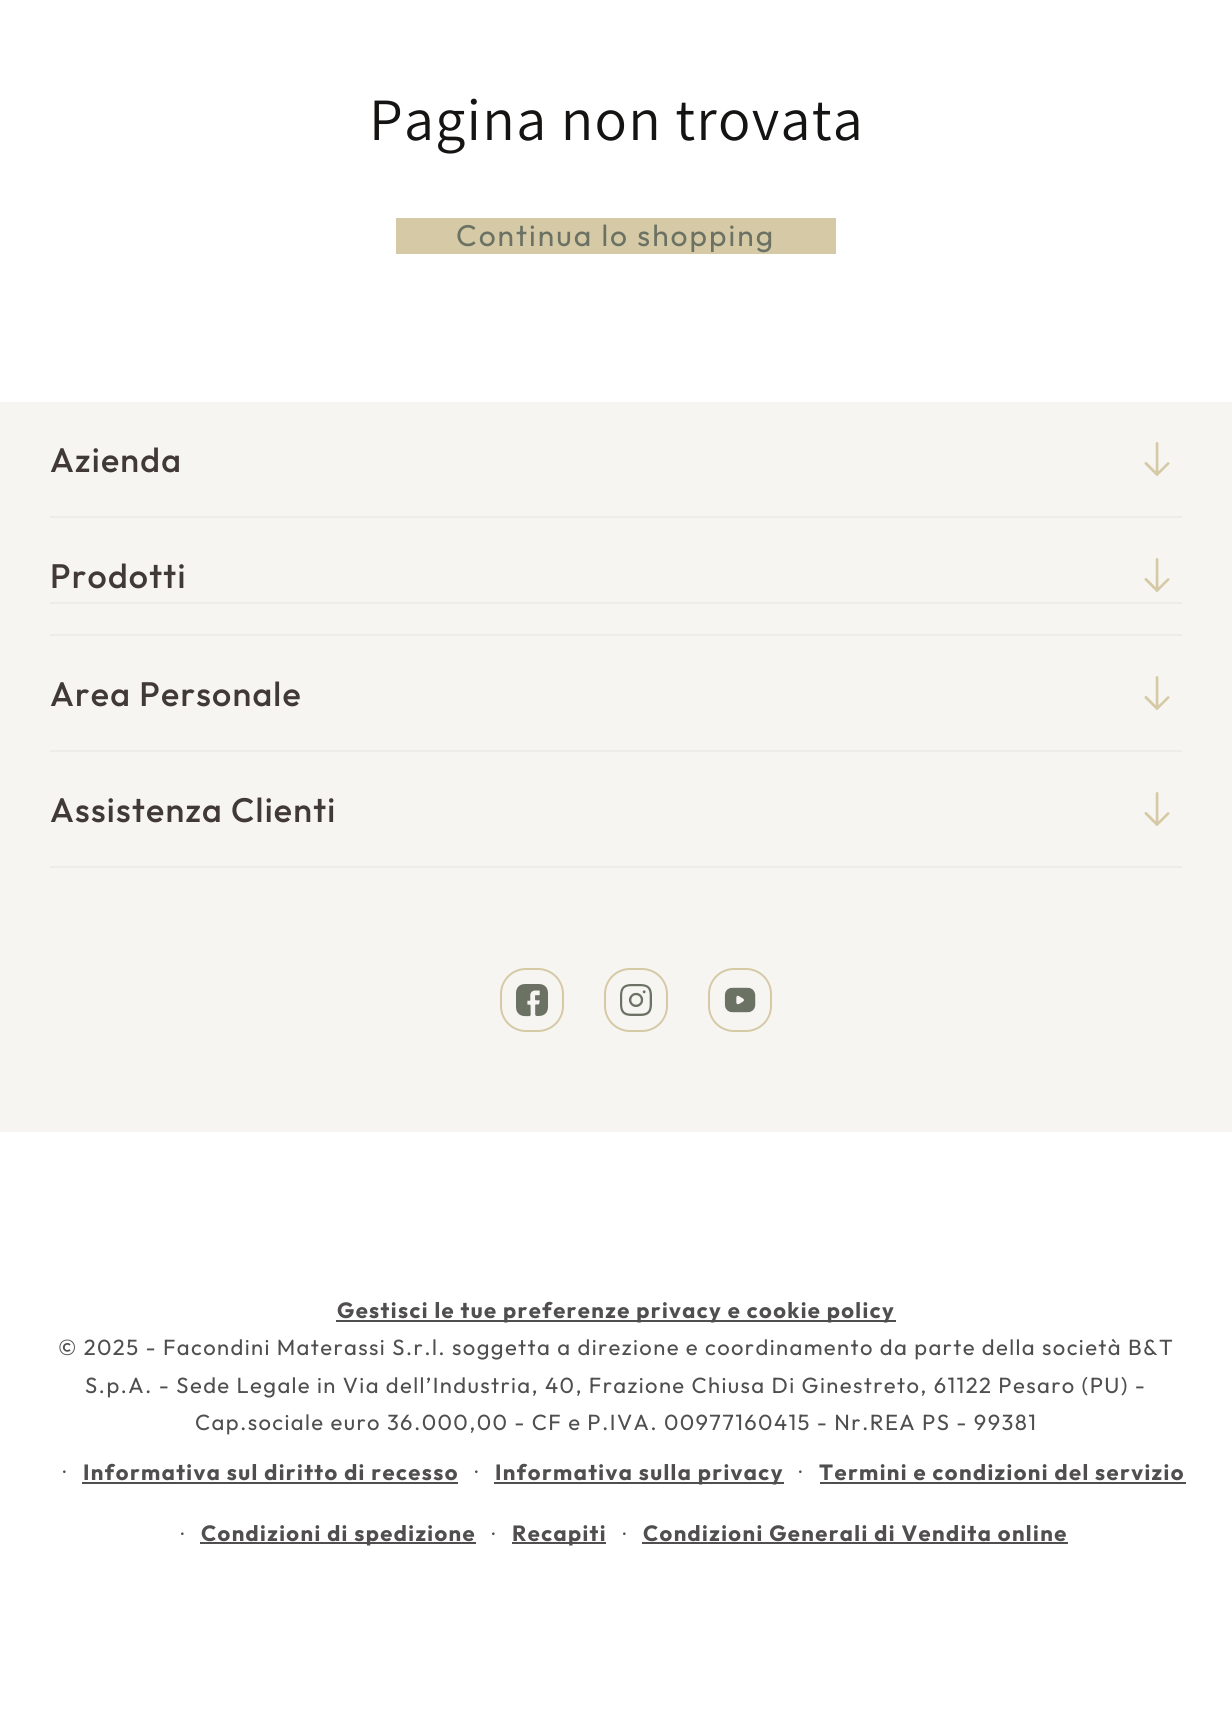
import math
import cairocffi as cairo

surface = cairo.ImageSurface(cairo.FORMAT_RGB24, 1232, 1724)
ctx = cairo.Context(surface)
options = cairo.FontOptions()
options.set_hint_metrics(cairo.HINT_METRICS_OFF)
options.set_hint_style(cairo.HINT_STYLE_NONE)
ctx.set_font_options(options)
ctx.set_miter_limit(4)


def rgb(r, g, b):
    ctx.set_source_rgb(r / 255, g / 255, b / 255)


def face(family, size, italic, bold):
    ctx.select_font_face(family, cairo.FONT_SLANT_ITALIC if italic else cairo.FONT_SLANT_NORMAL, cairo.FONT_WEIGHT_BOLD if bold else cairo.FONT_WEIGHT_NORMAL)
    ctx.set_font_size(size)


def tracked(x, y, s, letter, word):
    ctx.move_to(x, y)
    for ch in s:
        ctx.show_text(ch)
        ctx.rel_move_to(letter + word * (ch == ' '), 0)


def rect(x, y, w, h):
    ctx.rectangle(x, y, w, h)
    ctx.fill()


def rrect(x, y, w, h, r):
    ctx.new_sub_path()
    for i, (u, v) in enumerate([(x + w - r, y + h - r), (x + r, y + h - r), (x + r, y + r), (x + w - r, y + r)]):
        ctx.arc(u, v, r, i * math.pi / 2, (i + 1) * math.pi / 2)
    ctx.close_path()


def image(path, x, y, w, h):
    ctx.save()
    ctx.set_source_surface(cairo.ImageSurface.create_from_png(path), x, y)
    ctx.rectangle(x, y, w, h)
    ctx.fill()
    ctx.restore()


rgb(255, 255, 255)
ctx.paint()
face('Assistant', 60, 0, 0)
rgb(22, 20, 19)
tracked(369, 140, 'Pagina non trovata', 1.25, 0)
rgb(213, 202, 165)
rect(396, 218, 440, 36)
face('Outfit Thin', 30, 0, 0)
rgb(107, 114, 100)
tracked(456, 246, 'Continua lo shopping', 2, 0)
rgb(246, 245, 242)
rect(0, 402, 1232, 730)
face('Outfit Medium', 34, 0, 0)
rgb(65, 57, 54)
tracked(50, 472, 'Azienda', 1.25, 0)
image('image0.png', 1144, 442, 26, 34)
rgb(237, 236, 231)
rect(50, 516, 1132, 2)
rgb(65, 57, 54)
tracked(50, 588, 'Prodotti', 1.25, 0)
image('image0.png', 1144, 558, 26, 34)
rgb(237, 236, 231)
rect(50, 602, 1132, 2)
rect(50, 634, 1132, 2)
rgb(65, 57, 54)
tracked(50, 706, 'Area Personale', 1.25, 0)
image('image0.png', 1144, 676, 26, 34)
rgb(237, 236, 231)
rect(50, 750, 1132, 2)
rect(50, 866, 1132, 2)
rgb(65, 57, 54)
tracked(50, 822, 'Assistenza Clienti', 1.25, 0)
image('image0.png', 1144, 792, 26, 34)
rrect(501, 969, 62, 62, 25)
rgb(213, 202, 165)
ctx.stroke()
image('image1.png', 516, 984, 32, 33)
rrect(605, 969, 62, 62, 25)
ctx.stroke()
image('image2.png', 620, 984, 32, 32)
rrect(709, 969, 62, 62, 25)
ctx.stroke()
image('image3.png', 724, 987, 32, 26)
rgb(80, 79, 78)
rect(336, 1320, 560, 2)
face('Outfit', 22, 0, 1)
rgb(80, 78, 78)
tracked(337, 1318, 'Gestisci le tue preferenze privacy e cookie policy', 1.4, 0)
face('Outfit Thin', 22, 0, 0)
tracked(58, 1355, '© 2025 - Facondini Materassi S.r.l. soggetta a direzione e coordinamento da parte della società B&T', 1.4, 0)
tracked(85, 1393, 'S.p.A. - Sede Legale in Via dell’Industria, 40, Frazione Chiusa Di Ginestreto, 61122 Pesaro (PU) -', 1.4, 0)
tracked(195, 1430, 'Cap.sociale euro 36.000,00 - CF e P.IVA. 00977160415 - Nr.REA PS - 99381', 1.4, 0)
face('Outfit Thin', 20, 0, 0)
tracked(63, 1479, '·', 1.4, 0)
face('Outfit', 22, 0, 1)
tracked(83, 1480, 'Informativa sul diritto di recesso', 1.4, 0)
rgb(80, 79, 78)
rect(82, 1482, 376, 2)
face('Outfit Thin', 20, 0, 0)
rgb(80, 78, 78)
tracked(475, 1479, '·', 1.4, 0)
rgb(80, 79, 78)
rect(494, 1482, 290, 2)
face('Outfit', 22, 0, 1)
rgb(80, 78, 78)
tracked(495, 1480, 'Informativa sulla privacy', 1.4, 0)
face('Outfit Thin', 20, 0, 0)
tracked(799, 1479, '·', 1.4, 0)
face('Outfit', 22, 0, 1)
tracked(819, 1480, 'Termini e condizioni del servizio', 1.4, 0)
rgb(80, 79, 78)
rect(820, 1482, 366, 2)
face('Outfit Thin', 20, 0, 0)
rgb(80, 78, 78)
tracked(181, 1541, '·', 1.4, 0)
rgb(80, 79, 78)
rect(200, 1542, 276, 2)
face('Outfit', 22, 0, 1)
rgb(80, 78, 78)
tracked(201, 1541, 'Condizioni di spedizione', 1.4, 0)
face('Outfit Thin', 20, 0, 0)
tracked(492, 1541, '·', 1.4, 0)
rgb(80, 79, 78)
rect(512, 1542, 94, 2)
face('Outfit', 22, 0, 1)
rgb(80, 78, 78)
tracked(512, 1541, 'Recapiti', 1.4, 0)
face('Outfit Thin', 20, 0, 0)
tracked(623, 1541, '·', 1.4, 0)
face('Outfit', 22, 0, 1)
tracked(643, 1541, 'Condizioni Generali di Vendita online', 1.4, 0)
rgb(80, 79, 78)
rect(642, 1542, 426, 2)
surface.write_to_png('render.png')
